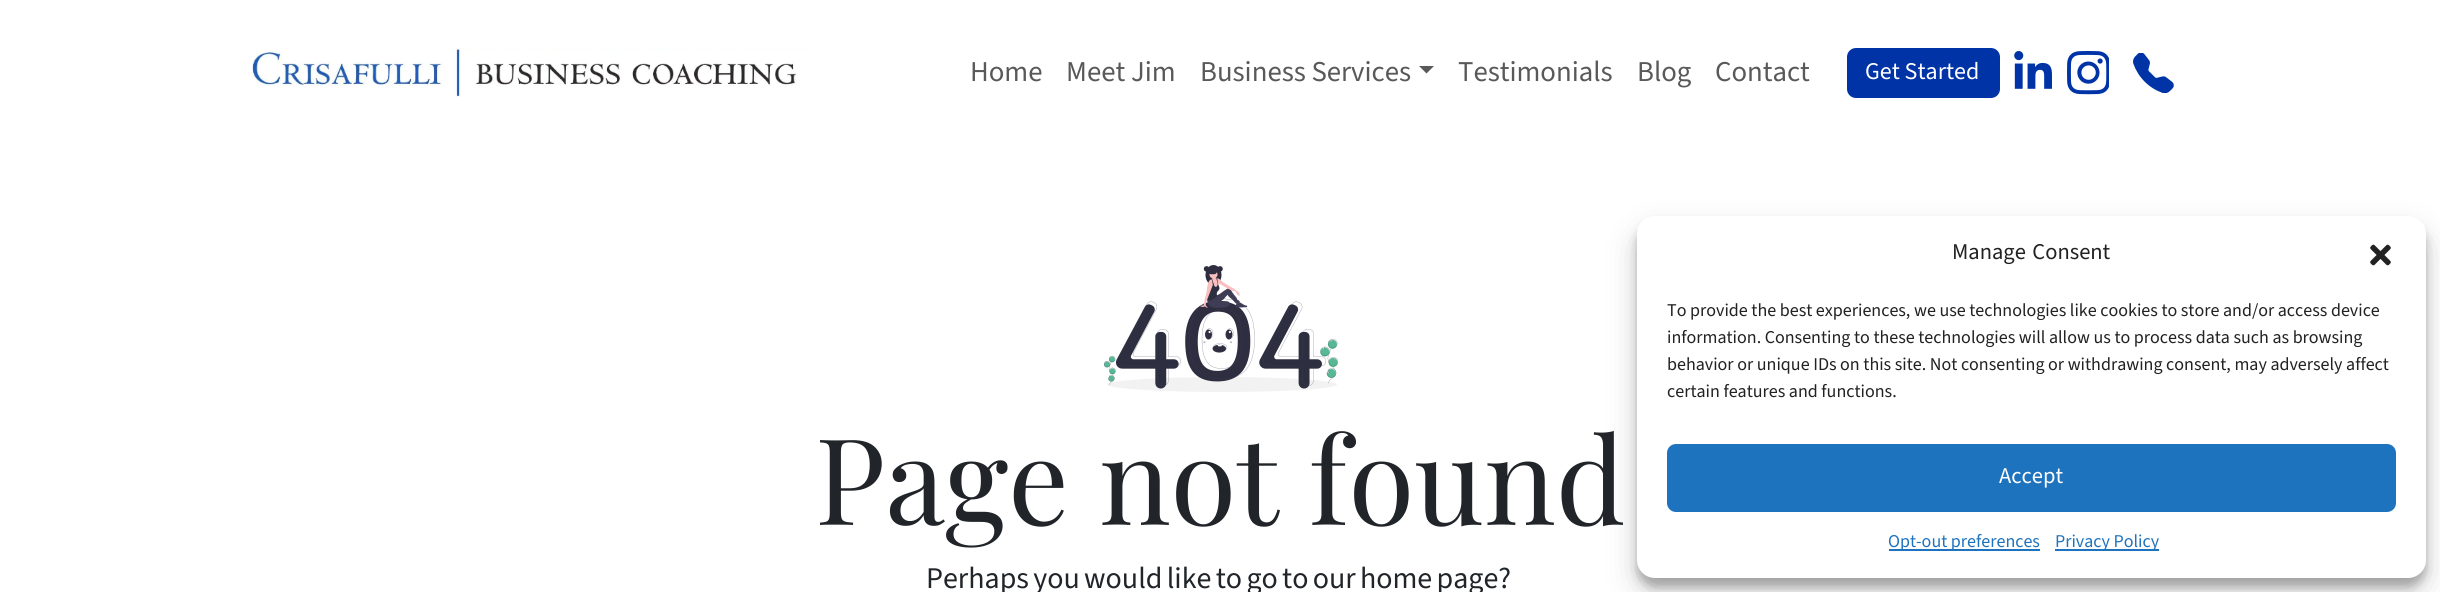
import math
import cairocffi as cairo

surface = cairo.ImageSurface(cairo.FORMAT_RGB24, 2440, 592)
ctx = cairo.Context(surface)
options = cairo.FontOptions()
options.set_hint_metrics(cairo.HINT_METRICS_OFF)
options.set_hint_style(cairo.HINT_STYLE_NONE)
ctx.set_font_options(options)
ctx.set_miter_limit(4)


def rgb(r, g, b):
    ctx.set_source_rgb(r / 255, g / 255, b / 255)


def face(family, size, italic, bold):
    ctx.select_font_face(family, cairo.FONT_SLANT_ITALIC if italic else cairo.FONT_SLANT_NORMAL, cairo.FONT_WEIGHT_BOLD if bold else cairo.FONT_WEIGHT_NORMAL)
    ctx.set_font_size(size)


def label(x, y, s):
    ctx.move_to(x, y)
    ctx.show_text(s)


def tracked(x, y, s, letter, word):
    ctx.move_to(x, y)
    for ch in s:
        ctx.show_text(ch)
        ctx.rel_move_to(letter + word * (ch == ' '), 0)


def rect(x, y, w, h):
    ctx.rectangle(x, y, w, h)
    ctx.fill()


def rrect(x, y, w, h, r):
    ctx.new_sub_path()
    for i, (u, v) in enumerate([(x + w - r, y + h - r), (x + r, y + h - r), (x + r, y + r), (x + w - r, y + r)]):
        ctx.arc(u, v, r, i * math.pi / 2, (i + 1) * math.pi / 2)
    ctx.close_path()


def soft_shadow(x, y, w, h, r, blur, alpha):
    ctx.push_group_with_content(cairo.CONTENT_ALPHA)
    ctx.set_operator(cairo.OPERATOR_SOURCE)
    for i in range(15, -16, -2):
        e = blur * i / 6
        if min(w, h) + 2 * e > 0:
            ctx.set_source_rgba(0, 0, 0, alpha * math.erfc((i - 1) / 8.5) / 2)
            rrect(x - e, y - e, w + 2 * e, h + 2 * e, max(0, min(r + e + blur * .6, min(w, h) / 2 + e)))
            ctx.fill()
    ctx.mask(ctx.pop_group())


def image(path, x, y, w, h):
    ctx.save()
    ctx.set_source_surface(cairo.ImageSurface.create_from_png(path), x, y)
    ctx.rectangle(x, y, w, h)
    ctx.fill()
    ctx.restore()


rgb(255, 255, 255)
ctx.paint()
image('image0.png', 251, 47, 554, 50)
face('Source Sans 3', 28.75, 0, 0)
rgb(89, 89, 89)
label(970, 81, 'Home')
label(1066, 81, 'Meet Jim')
label(1200, 81, 'Business Services')
ctx.new_path()
ctx.move_to(1419, 66)
ctx.line_to(1434, 66)
ctx.line_to(1426.5, 73.5)
ctx.close_path()
ctx.fill()
label(1458, 81, 'Testimonials')
label(1637, 81, 'Blog')
label(1715, 81, 'Contact')
rgb(0, 51, 166)
rrect(1848, 49, 151, 48, 8)
ctx.fill_preserve()
ctx.stroke()
face('Source Sans 3', 24, 0, 0)
rgb(255, 255, 255)
label(1865, 79, 'Get Started')
image('image1.png', 2014, 51, 38, 38)
image('image2.png', 2067, 51, 42, 44)
image('image3.png', 2133, 53, 41, 40)
image('image4.png', 1104, 265, 234, 127)
face('Playfair Display', 120, 0, 0)
rgb(33, 37, 41)
label(815, 525, 'Page not found')
face('Source Sans 3', 30, 0, 0)
tracked(926, 588, 'Perhaps you would like to go to our home page?', 0, -1.75)
rgb(0, 0, 0)
soft_shadow(1637, 225, 789, 362, 18, 4.5, 0.23)
soft_shadow(1637, 231, 789, 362, 18, 15, 0.19)
rgb(255, 255, 255)
rrect(1637, 216, 789, 362, 18)
ctx.fill()
face('Source Sans 3', 22.5, 0, 0)
rgb(34, 34, 34)
tracked(1952, 259, 'Manage Consent', 0, 2)
image('image5.png', 2370, 244, 21, 22)
face('Source Sans 3', 18, 0, 0)
label(1667, 316, 'To provide the best experiences, we use technologies like cookies to store and/or access device')
label(1667, 343, 'information. Consenting to these technologies will allow us to process data such as browsing')
label(1667, 370, 'behavior or unique IDs on this site. Not consenting or withdrawing consent, may adversely affect')
label(1667, 397, 'certain features and functions.')
rgb(30, 115, 190)
rrect(1668, 445, 727, 66, 8)
ctx.fill_preserve()
ctx.stroke()
face('Source Sans 3', 22.5, 0, 0)
rgb(255, 255, 255)
label(1999, 483, 'Accept')
rgb(30, 115, 190)
rect(1889, 549, 151, 2)
face('Source Sans 3', 18, 0, 0)
label(1888, 547, 'Opt-out preferences')
rect(2055, 549, 104, 2)
label(2055, 547, 'Privacy Policy')
surface.write_to_png('render.png')
